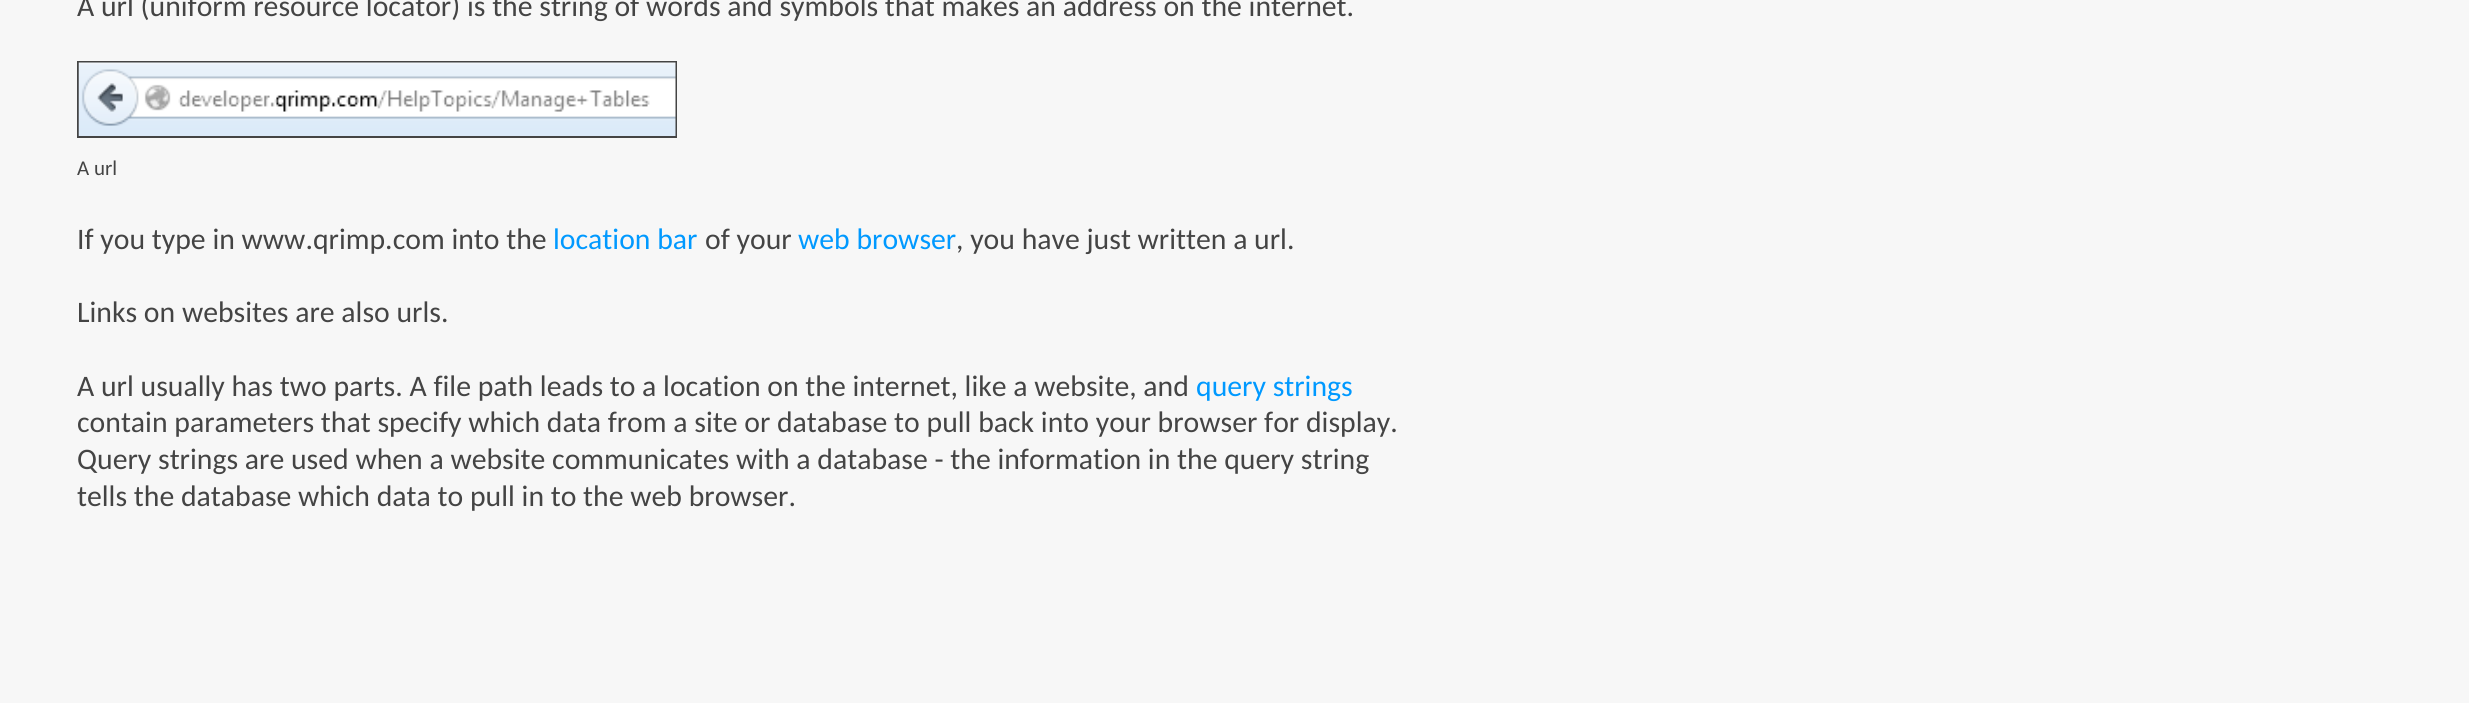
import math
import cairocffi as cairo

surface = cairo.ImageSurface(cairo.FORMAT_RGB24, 2469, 703)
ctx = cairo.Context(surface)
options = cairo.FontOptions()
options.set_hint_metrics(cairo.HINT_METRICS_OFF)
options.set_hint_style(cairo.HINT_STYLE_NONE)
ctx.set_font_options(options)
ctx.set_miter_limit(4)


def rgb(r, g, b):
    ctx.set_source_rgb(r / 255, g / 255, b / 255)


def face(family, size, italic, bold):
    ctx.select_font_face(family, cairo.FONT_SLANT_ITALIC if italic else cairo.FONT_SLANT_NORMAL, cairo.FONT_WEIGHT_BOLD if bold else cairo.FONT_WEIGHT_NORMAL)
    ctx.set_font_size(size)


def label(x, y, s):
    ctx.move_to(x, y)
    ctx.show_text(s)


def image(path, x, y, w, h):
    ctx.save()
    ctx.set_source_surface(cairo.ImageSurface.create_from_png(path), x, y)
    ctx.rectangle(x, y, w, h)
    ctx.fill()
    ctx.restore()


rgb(247, 247, 247)
ctx.paint()
face('Carlito', 29.75, 0, 0)
rgb(68, 68, 68)
label(77, 16, 'A url (uniform resource locator) is the string of words and symbols that makes an address on the internet.')
ctx.rectangle(78, 62, 598, 75)
ctx.stroke()
image('image0.png', 78, 62, 598, 74)
face('Carlito', 21, 0, 0)
label(77, 175, 'A url')
face('Carlito', 29.75, 0, 0)
label(77, 249, 'If you type in www.qrimp.com into the')
rgb(0, 153, 255)
label(553, 249, 'location bar')
rgb(68, 68, 68)
label(705, 249, 'of your')
rgb(0, 153, 255)
label(798, 249, 'web browser')
rgb(68, 68, 68)
label(956, 249, ', you have just written a url.')
label(77, 322, 'Links on websites are also urls.')
label(77, 396, 'A url usually has two parts. A file path leads to a location on the internet, like a website, and')
rgb(0, 153, 255)
label(1196, 396, 'query strings')
rgb(68, 68, 68)
label(77, 432, 'contain parameters that specify which data from a site or database to pull back into your browser for display.')
label(77, 469, 'Query strings are used when a website communicates with a database - the information in the query string')
label(77, 506, 'tells the database which data to pull in to the web browser.')
surface.write_to_png('render.png')
